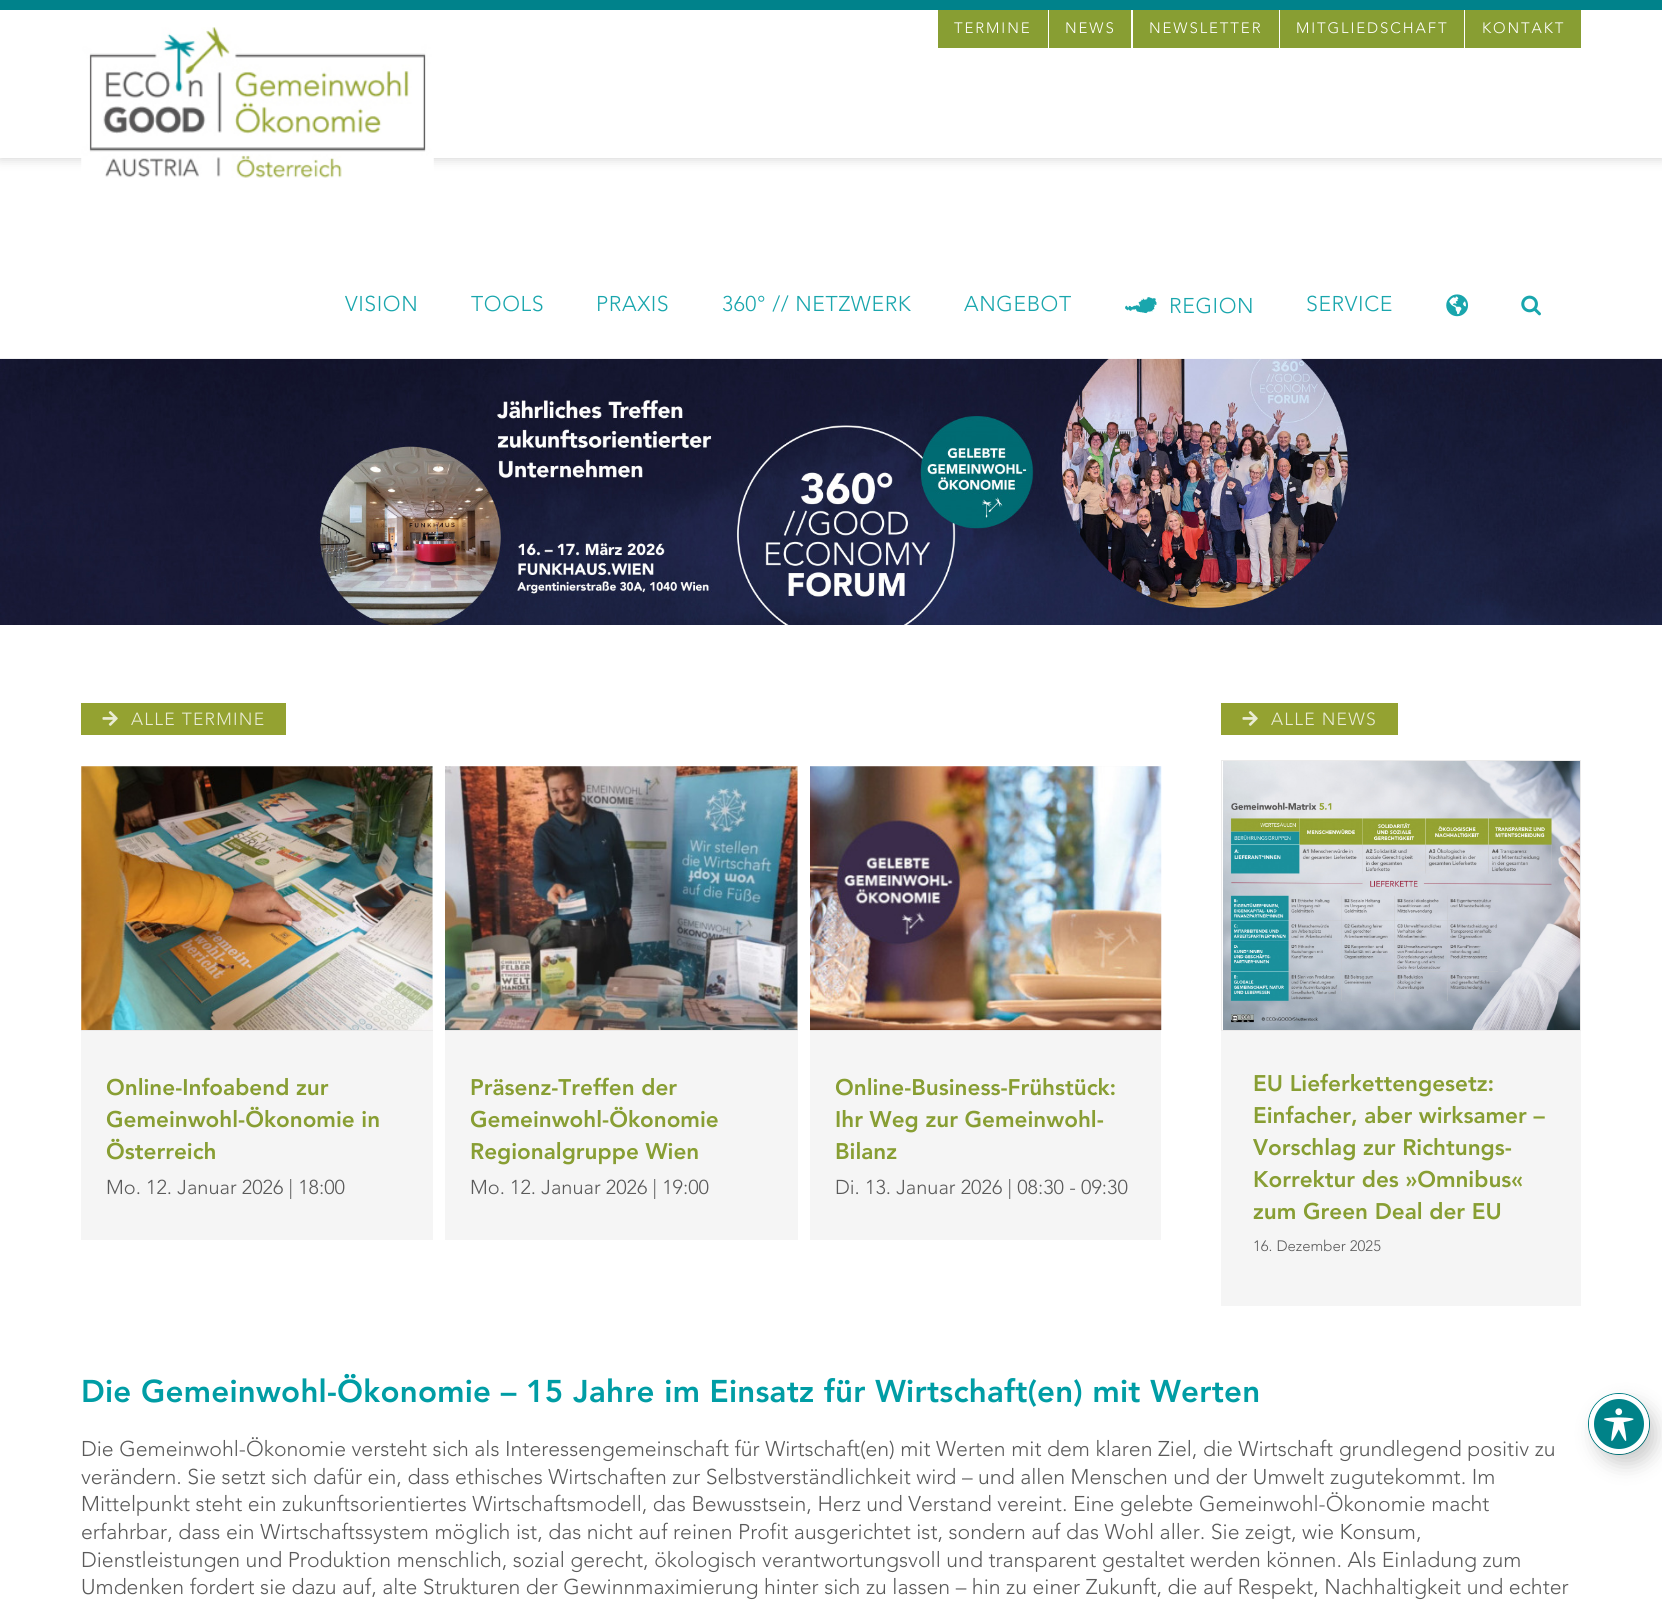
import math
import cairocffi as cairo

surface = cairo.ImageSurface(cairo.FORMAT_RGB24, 1662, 1605)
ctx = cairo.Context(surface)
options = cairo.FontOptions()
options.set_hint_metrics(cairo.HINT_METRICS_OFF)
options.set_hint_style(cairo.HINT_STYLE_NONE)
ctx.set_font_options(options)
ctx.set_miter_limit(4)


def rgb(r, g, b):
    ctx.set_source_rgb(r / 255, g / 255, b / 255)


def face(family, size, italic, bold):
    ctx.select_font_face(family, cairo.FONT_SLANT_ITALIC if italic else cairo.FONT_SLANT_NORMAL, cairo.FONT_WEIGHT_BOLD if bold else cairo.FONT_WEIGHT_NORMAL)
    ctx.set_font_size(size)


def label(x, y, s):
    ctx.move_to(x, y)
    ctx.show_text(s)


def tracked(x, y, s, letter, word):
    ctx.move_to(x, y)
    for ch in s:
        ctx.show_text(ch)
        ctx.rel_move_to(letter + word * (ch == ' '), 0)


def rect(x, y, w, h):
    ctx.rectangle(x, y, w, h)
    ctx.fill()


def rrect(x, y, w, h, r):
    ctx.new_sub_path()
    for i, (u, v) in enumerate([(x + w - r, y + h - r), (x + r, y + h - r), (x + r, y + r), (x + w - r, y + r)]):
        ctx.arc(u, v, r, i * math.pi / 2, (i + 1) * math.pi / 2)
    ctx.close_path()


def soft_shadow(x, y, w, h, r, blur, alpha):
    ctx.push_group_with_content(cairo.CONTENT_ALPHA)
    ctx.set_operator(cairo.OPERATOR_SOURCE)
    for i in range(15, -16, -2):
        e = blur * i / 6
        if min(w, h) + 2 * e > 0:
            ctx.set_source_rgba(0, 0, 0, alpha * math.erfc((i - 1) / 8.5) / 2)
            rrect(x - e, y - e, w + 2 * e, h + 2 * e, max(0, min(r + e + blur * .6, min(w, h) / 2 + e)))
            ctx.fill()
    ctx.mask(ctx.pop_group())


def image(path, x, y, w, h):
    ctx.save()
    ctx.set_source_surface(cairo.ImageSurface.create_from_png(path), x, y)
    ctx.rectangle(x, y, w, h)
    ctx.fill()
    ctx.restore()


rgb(255, 255, 255)
ctx.paint()
rgb(0, 0, 0)
soft_shadow(0, 0, 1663, 158, 0, 6, 0.2)
rgb(0, 130, 139)
rect(0, 0, 1662, 10)
rgb(255, 255, 255)
rect(0, 10, 1662, 148)
rgb(136, 158, 51)
rect(938, 10, 110, 38)
face('Avenir Light', 15, 0, 0)
rgb(255, 255, 255)
tracked(954, 33, 'TERMINE', 1.9, 0)
rgb(136, 158, 51)
rect(1049, 10, 82, 38)
rgb(255, 255, 255)
tracked(1065, 33, 'NEWS', 1.9, 0)
rgb(136, 158, 51)
rect(1133, 10, 146, 38)
rgb(255, 255, 255)
tracked(1149, 33, 'NEWSLETTER', 1.9, 0)
rgb(136, 158, 51)
rect(1280, 10, 184, 38)
rgb(255, 255, 255)
tracked(1296, 33, 'MITGLIEDSCHAFT', 1.9, 0)
rgb(136, 158, 51)
rect(1465, 10, 116, 38)
rgb(255, 255, 255)
tracked(1482, 33, 'KONTAKT', 1.9, 0)
image('image0.png', 81, 27, 353, 151)
face('Avenir Light', 21.25, 0, 0)
rgb(25, 166, 173)
tracked(345, 311, 'VISION', 0.6, 0)
tracked(471, 311, 'TOOLS', 0.6, 0)
tracked(596, 311, 'PRAXIS', 0.6, 0)
tracked(722, 311, '360° // NETZWERK', 0.6, 0)
tracked(964, 311, 'ANGEBOT', 0.6, 0)
image('image1.png', 1125, 297, 32, 17)
tracked(1169, 313, 'REGION', 0.6, 0)
tracked(1306, 311, 'SERVICE', 0.6, 0)
image('image2.png', 1446, 294, 23, 23)
image('image3.png', 1521, 295, 20, 21)
image('image4.png', 0, 358, 1662, 267)
rgb(148, 162, 49)
rect(81, 703, 205, 32)
image('image5.png', 102, 711, 16, 15)
face('Avenir Light', 17.5, 0, 0)
rgb(234, 236, 214)
tracked(131, 725, 'ALLE TERMINE', 1.25, 0)
rgb(148, 162, 49)
rect(1221, 703, 177, 32)
image('image5.png', 1242, 711, 16, 15)
rgb(234, 236, 214)
tracked(1271, 725, 'ALLE NEWS', 1.25, 0)
rgb(245, 245, 245)
rect(81, 766, 352, 474)
rgb(235, 234, 234)
rect(81, 1030, 352, 1)
image('image6.png', 81, 766, 352, 264)
face('Avenir Black', 22.5, 0, 0)
rgb(136, 158, 51)
label(106, 1095, 'Online-Infoabend zur')
label(106, 1127, 'Gemeinwohl-Ökonomie in')
label(106, 1159, 'Österreich')
face('Avenir Light', 20, 0, 0)
rgb(90, 90, 90)
label(106, 1194, 'Mo. 12. Januar 2026 | 18:00')
rgb(245, 245, 245)
rect(445, 766, 353, 474)
rgb(235, 234, 234)
rect(445, 1030, 353, 1)
image('image7.png', 445, 766, 353, 264)
face('Avenir Black', 22.5, 0, 0)
rgb(136, 158, 51)
label(470, 1095, 'Präsenz-Treffen der')
label(470, 1127, 'Gemeinwohl-Ökonomie')
label(470, 1159, 'Regionalgruppe Wien')
face('Avenir Light', 20, 0, 0)
rgb(90, 90, 90)
label(470, 1194, 'Mo. 12. Januar 2026 | 19:00')
rgb(245, 245, 245)
rect(810, 766, 351, 474)
rgb(235, 234, 234)
rect(810, 1030, 351, 1)
image('image8.png', 810, 766, 352, 264)
face('Avenir Black', 22.5, 0, 0)
rgb(136, 158, 51)
label(835, 1095, 'Online-Business-Frühstück:')
label(835, 1127, 'Ihr Weg zur Gemeinwohl-')
label(835, 1159, 'Bilanz')
face('Avenir Light', 20, 0, 0)
rgb(90, 90, 90)
label(835, 1194, 'Di. 13. Januar 2026 | 08:30 - 09:30')
rgb(245, 245, 245)
rect(1221, 1031, 360, 275)
ctx.rectangle(1221.5, 760.5, 359, 270)
rgb(235, 234, 234)
ctx.set_line_width(1)
ctx.stroke()
image('image9.png', 1223, 761, 357, 269)
face('Avenir Black', 22.5, 0, 0)
rgb(136, 158, 51)
label(1253, 1091, 'EU Lieferkettengesetz:')
label(1253, 1123, 'Einfacher, aber wirksamer –')
label(1253, 1155, 'Vorschlag zur Richtungs-')
label(1253, 1187, 'Korrektur des »Omnibus«')
label(1253, 1219, 'zum Green Deal der EU')
face('Avenir Light', 15, 0, 0)
rgb(90, 90, 90)
label(1253, 1251, '16. Dezember 2025')
face('Avenir Black', 31.25, 0, 0)
rgb(0, 157, 165)
tracked(81, 1402, 'Die Gemeinwohl-Ökonomie – 15 Jahre im Einsatz für Wirtschaft(en) mit Werten', 0.25, 0)
face('Avenir Light', 21.25, 0, 0)
rgb(90, 90, 90)
label(81, 1456, 'Die Gemeinwohl-Ökonomie versteht sich als Interessengemeinschaft für Wirtschaft(en) mit Werten mit dem klaren Ziel, die Wirtschaft grundlegend positiv zu')
label(81, 1484, 'verändern. Sie setzt sich dafür ein, dass ethisches Wirtschaften zur Selbstverständlichkeit wird – und allen Menschen und der Umwelt zugutekommt. Im')
label(81, 1511, 'Mittelpunkt steht ein zukunftsorientiertes Wirtschaftsmodell, das Bewusstsein, Herz und Verstand vereint. Eine gelebte Gemeinwohl-Ökonomie macht')
label(81, 1539, 'erfahrbar, dass ein Wirtschaftssystem möglich ist, das nicht auf reinen Profit ausgerichtet ist, sondern auf das Wohl aller. Sie zeigt, wie Konsum,')
label(81, 1567, 'Dienstleistungen und Produktion menschlich, sozial gerecht, ökologisch verantwortungsvoll und transparent gestaltet werden können. Als Einladung zum')
label(81, 1594, 'Umdenken fordert sie dazu auf, alte Strukturen der Gewinnmaximierung hinter sich zu lassen – hin zu einer Zukunft, die auf Respekt, Nachhaltigkeit und echter')
ctx.new_path()
ctx.arc(1619, 1424, 30.5, 0, 2 * math.pi)
rgb(0, 130, 136)
ctx.stroke()
rgb(0, 0, 0)
soft_shadow(1596, 1404, 60, 60, 30, 10, 0.2)
rgb(0, 130, 136)
ctx.arc(1619, 1424, 27.5, 0, 2 * math.pi)
ctx.fill_preserve()
rgb(255, 255, 255)
ctx.set_line_width(5)
ctx.stroke()
image('image10.png', 1604, 1408, 30, 33)
surface.write_to_png('render.png')
